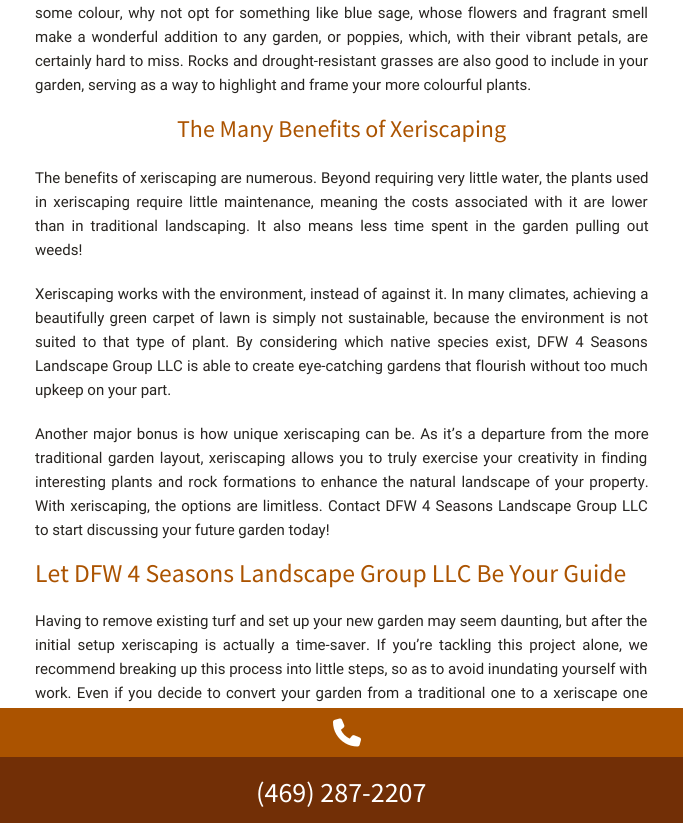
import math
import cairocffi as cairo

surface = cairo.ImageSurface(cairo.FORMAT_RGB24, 683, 823)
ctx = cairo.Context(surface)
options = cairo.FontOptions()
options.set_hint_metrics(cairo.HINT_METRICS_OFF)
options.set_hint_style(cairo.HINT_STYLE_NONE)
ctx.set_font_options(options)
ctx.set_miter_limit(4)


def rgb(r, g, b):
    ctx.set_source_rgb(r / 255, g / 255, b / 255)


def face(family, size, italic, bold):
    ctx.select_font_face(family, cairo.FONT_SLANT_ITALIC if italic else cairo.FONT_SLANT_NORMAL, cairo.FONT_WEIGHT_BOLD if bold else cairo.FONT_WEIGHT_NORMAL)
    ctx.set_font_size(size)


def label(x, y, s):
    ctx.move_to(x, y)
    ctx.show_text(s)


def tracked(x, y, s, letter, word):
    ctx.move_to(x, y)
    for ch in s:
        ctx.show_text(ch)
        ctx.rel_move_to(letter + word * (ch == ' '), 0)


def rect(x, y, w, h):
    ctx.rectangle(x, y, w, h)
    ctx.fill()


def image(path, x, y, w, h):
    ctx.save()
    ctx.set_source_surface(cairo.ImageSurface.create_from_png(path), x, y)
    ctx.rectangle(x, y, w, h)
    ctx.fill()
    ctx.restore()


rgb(255, 255, 255)
ctx.paint()
face('Roboto', 15, 0, 0)
rgb(39, 36, 32)
tracked(35, 18, 'some colour, why not opt for something like blue sage, whose flowers and fragrant smell', 0, 1.75)
tracked(35, 42, 'make a wonderful addition to any garden, or poppies, which, with their vibrant petals, are', 0, 2)
tracked(35, 66, 'certainly hard to miss. Rocks and drought-resistant grasses are also good to include in your', 0, 0.4)
label(35, 90, 'garden, serving as a way to highlight and frame your more colourful plants.')
face('Source Sans Pro', 24, 0, 0)
rgb(171, 83, 0)
label(177, 137, 'The Many Benefits of Xeriscaping')
face('Roboto', 15, 0, 0)
rgb(39, 36, 32)
tracked(35, 183, 'The benefits of xeriscaping are numerous. Beyond requiring very little water, the plants used', 0, 0.25)
tracked(35, 207, 'in xeriscaping require little maintenance, meaning the costs associated with it are lower', 0, 2.6)
tracked(35, 231, 'than in traditional landscaping. It also means less time spent in the garden pulling out', 0, 3.25)
label(35, 255, 'weeds!')
tracked(35, 299, 'Xeriscaping works with the environment, instead of against it. In many climates, achieving a', 0, 0.4)
tracked(35, 323, 'beautifully green carpet of lawn is simply not sustainable, because the environment is not', 0, 1.5)
tracked(35, 347, 'suited to that type of plant. By considering which native species exist, DFW 4 Seasons', 0, 3.1)
tracked(35, 371, 'Landscape Group LLC is able to create eye-catching gardens that flourish without too much', 0, 0.4)
label(35, 395, 'upkeep on your part.')
tracked(35, 439, 'Another major bonus is how unique xeriscaping can be. As it’s a departure from the more', 0, 1.5)
tracked(35, 463, 'traditional garden layout, xeriscaping allows you to truly exercise your creativity in finding', 0, 1.75)
tracked(35, 487, 'interesting plants and rock formations to enhance the natural landscape of your property.', 0, 1.75)
tracked(35, 511, 'With xeriscaping, the options are limitless. Contact DFW 4 Seasons Landscape Group LLC', 0, 1.4)
label(35, 535, 'to start discussing your future garden today!')
face('Source Sans Pro', 25.6, 0, 0)
rgb(171, 83, 0)
label(35, 582, 'Let DFW 4 Seasons Landscape Group LLC Be Your Guide')
face('Roboto', 15, 0, 0)
rgb(39, 36, 32)
tracked(35, 626, 'Having to remove existing turf and set up your new garden may seem daunting, but after the', 0, 0.1)
tracked(35, 650, 'initial setup xeriscaping is actually a time-saver. If you’re tackling this project alone, we', 0, 2.9)
label(35, 674, 'recommend breaking up this process into little steps, so as to avoid inundating yourself with')
tracked(35, 698, 'work. Even if you decide to convert your garden from a traditional one to a xeriscape one', 0, 1.6)
rgb(171, 83, 0)
rect(0, 708, 683, 49)
image('image0.png', 333, 718, 28, 29)
rgb(114, 47, 6)
rect(0, 757, 683, 66)
face('Source Sans Pro', 28, 0, 0)
rgb(255, 255, 255)
label(256, 802, '(469) 287-2207')
surface.write_to_png('render.png')
